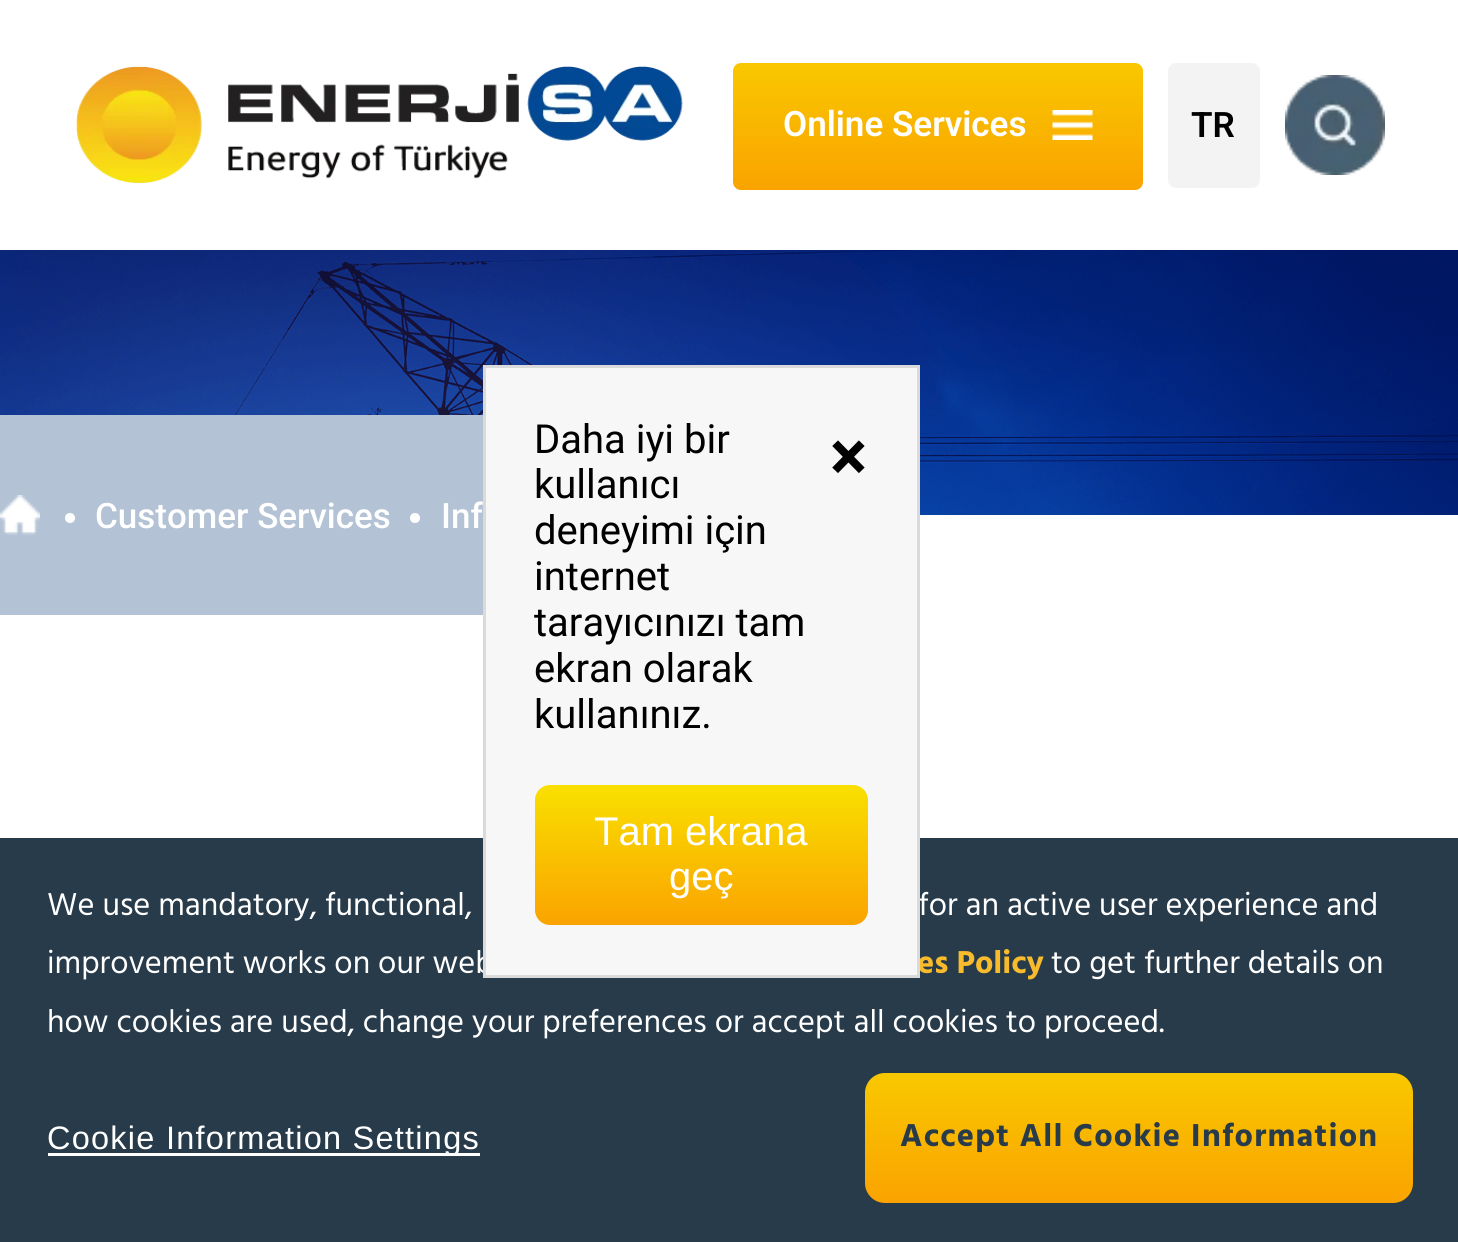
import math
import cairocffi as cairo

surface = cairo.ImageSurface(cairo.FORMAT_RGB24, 1458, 1242)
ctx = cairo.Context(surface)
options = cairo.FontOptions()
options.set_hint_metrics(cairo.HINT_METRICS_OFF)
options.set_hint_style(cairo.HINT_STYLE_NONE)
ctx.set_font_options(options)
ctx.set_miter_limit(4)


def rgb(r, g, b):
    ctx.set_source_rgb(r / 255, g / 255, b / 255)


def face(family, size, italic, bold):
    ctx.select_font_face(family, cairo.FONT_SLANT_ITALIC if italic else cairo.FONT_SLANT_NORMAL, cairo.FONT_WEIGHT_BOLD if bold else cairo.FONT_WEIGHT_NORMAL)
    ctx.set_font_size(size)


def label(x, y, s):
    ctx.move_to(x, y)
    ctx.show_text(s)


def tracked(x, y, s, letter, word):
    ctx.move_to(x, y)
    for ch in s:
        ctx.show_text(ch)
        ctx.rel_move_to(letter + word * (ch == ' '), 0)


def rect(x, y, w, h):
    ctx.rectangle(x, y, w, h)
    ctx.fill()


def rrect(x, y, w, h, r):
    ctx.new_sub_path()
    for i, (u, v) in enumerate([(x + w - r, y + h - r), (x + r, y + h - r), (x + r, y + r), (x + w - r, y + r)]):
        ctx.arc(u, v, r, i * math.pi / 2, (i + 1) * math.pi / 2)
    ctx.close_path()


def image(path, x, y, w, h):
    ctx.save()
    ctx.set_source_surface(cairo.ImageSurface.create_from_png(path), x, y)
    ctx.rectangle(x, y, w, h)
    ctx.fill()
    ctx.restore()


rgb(255, 255, 255)
ctx.paint()
image('image0.png', 76, 66, 607, 118)
gradient = cairo.LinearGradient(938, 62, 938, 190)
gradient.add_color_stop_rgba(0, 0.976, 0.784, 0, 1)
gradient.add_color_stop_rgba(1, 0.98, 0.639, 0, 1)
ctx.set_source(gradient)
rrect(733, 63, 410, 127, 8)
ctx.fill()
face('Roboto SemiBold', 35, 0, 0)
rgb(255, 255, 255)
label(783, 136, 'Online Services')
image('image1.png', 1052, 110, 41, 30)
rgb(243, 243, 243)
rrect(1168, 63, 92, 125, 8)
ctx.fill()
rgb(0, 0, 0)
label(1191, 137, 'TR')
image('image2.png', 1285, 75, 100, 100)
image('image3.png', 0, 250, 1458, 265)
rgb(179, 194, 212)
rect(0, 415, 483, 200)
image('image4.png', 0, 495, 40, 40)
rgb(255, 255, 255)
ctx.arc(70, 518, 5, 0, 2 * math.pi)
ctx.fill()
face('Roboto Medium', 35, 0, 0)
label(95, 528, 'Customer Services')
ctx.new_path()
ctx.arc(415, 518, 5, 0, 2 * math.pi)
ctx.fill()
label(441, 528, 'Inf')
rgb(40, 59, 74)
rect(0, 838, 1458, 404)
face('Hind', 32.5, 0, 0)
rgb(255, 255, 255)
label(47, 915, 'We use mandatory, functional,')
label(918, 915, 'for an active user experience and')
label(47, 973, 'improvement works on our web')
face('Hind', 32.5, 0, 1)
rgb(248, 187, 44)
label(917, 973, 'es Policy')
face('Hind', 32.5, 0, 0)
rgb(255, 255, 255)
label(1051, 973, 'to get further details on')
label(47, 1032, 'how cookies are used, change your preferences or accept all cookies to proceed.')
rect(48, 1153, 432, 3)
face('Liberation Sans', 32.5, 0, 0)
tracked(47, 1149, 'Cookie Information Settings', 1.25, 0)
gradient = cairo.LinearGradient(1139, 1073, 1139, 1203)
gradient.add_color_stop_rgba(0, 0.976, 0.784, 0, 1)
gradient.add_color_stop_rgba(1, 0.98, 0.639, 0, 1)
ctx.set_source(gradient)
rrect(865, 1073, 548, 130, 20)
ctx.fill()
face('Hind', 32.5, 0, 1)
rgb(40, 59, 74)
tracked(900, 1146, 'Accept All Cookie Information', 1.25, 0)
rgb(247, 247, 247)
ctx.rectangle(484.5, 366.5, 434, 610)
ctx.fill_preserve()
rgb(218, 218, 218)
ctx.set_line_width(3)
ctx.stroke()
face('Roboto', 40, 0, 0)
rgb(0, 0, 0)
label(534, 453, 'Daha iyi bir')
label(534, 498, 'kullanıcı')
label(534, 544, 'deneyimi için')
label(534, 590, 'internet')
label(534, 636, 'tarayıcınızı tam')
label(534, 682, 'ekran olarak')
label(534, 728, 'kullanınız.')
face('Roboto', 70, 0, 1)
label(830, 480, '×')
gradient = cairo.LinearGradient(701, 785, 701, 925)
gradient.add_color_stop_rgba(0, 0.976, 0.878, 0, 1)
gradient.add_color_stop_rgba(1, 0.98, 0.639, 0, 1)
ctx.set_source(gradient)
rrect(535, 785, 333, 140, 15)
ctx.fill()
face('Liberation Sans', 40, 0, 0)
rgb(255, 255, 255)
label(594, 845, 'Tam ekrana')
label(669, 890, 'geç')
surface.write_to_png('render.png')
